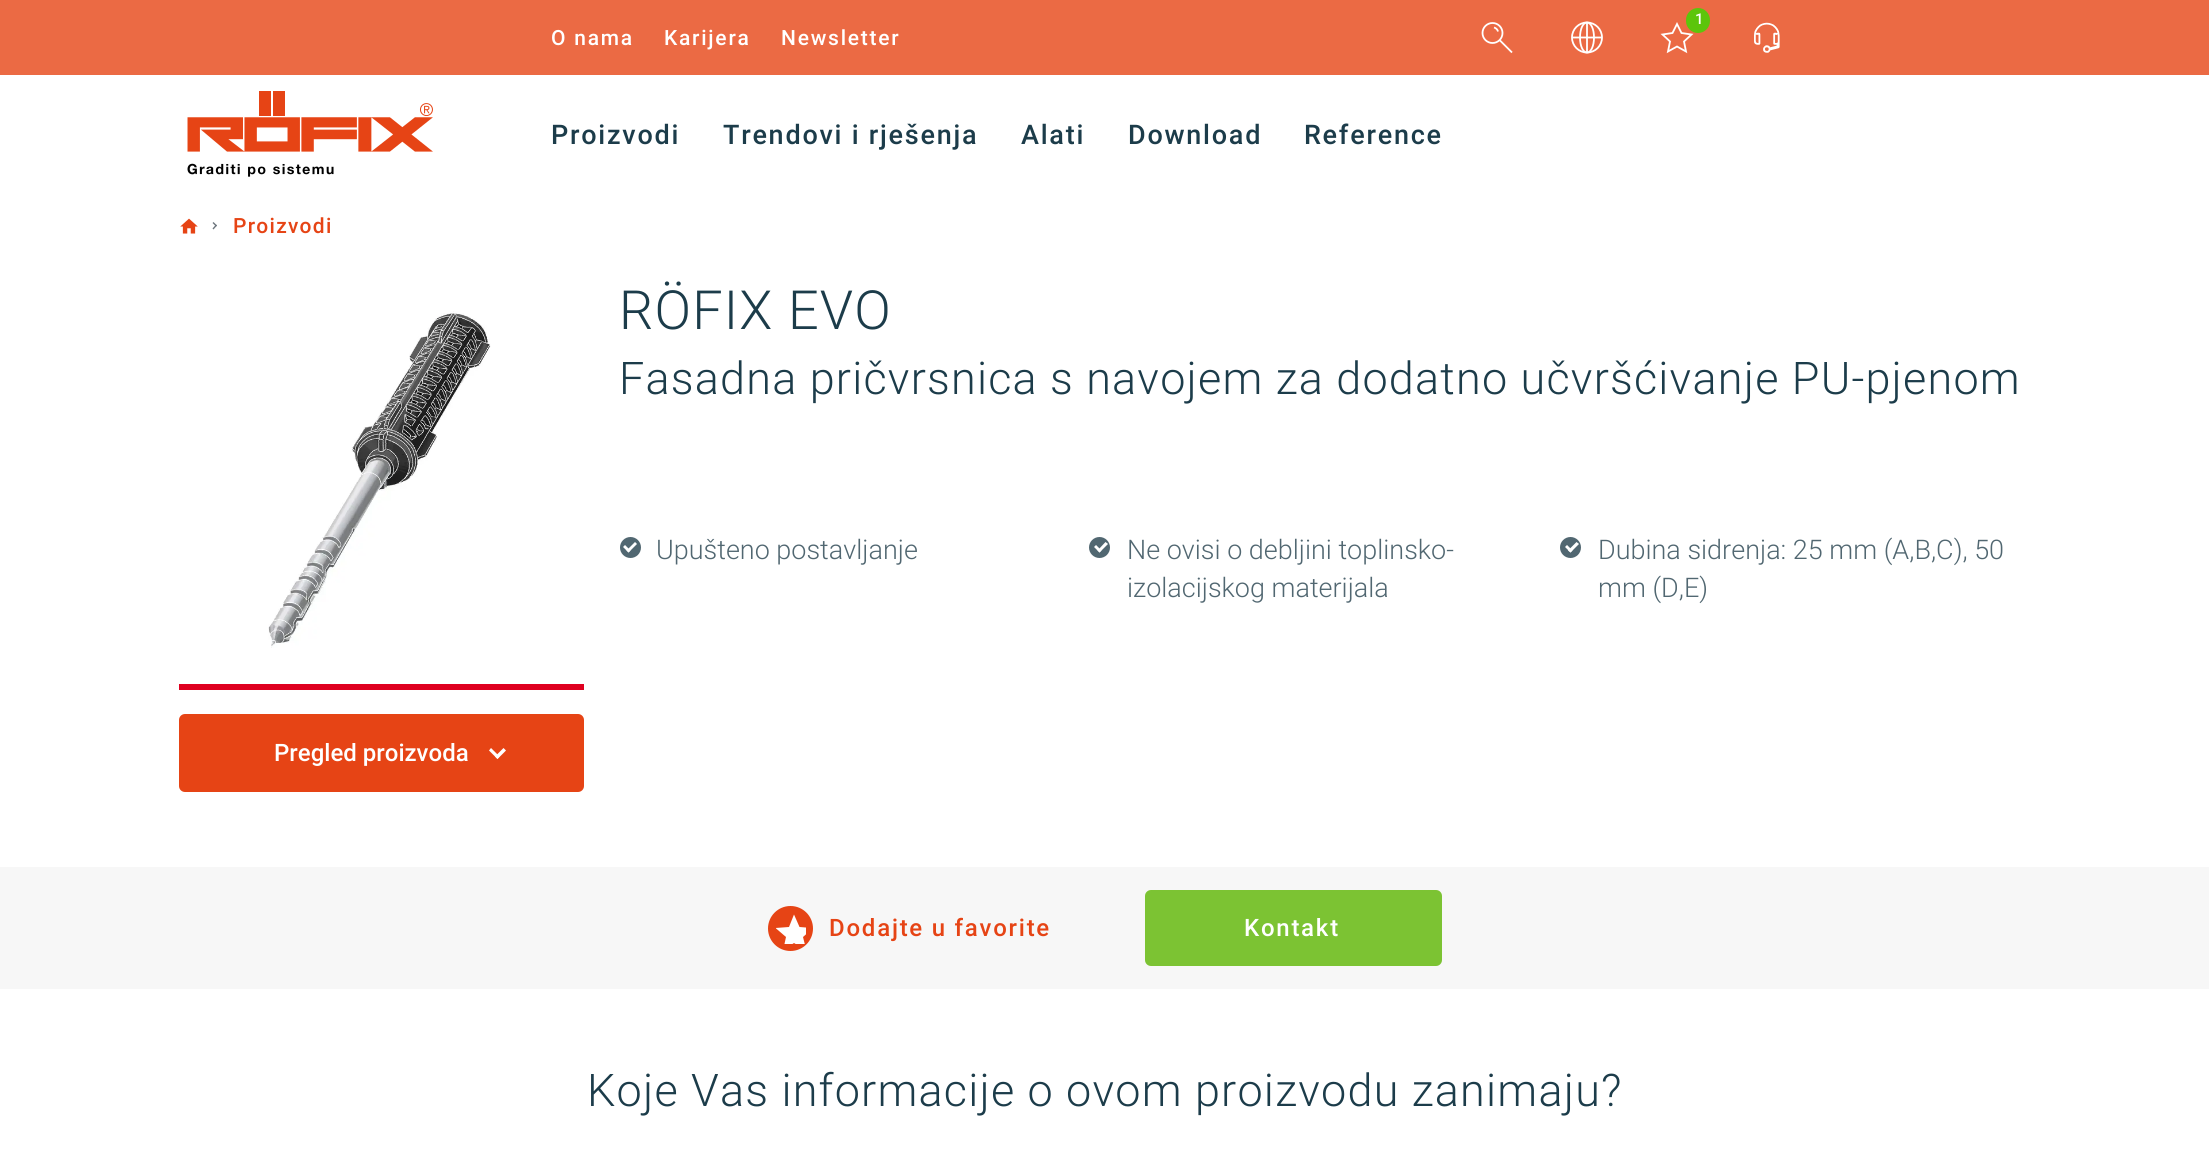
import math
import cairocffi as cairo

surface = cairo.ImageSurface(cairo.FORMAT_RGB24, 2209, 1170)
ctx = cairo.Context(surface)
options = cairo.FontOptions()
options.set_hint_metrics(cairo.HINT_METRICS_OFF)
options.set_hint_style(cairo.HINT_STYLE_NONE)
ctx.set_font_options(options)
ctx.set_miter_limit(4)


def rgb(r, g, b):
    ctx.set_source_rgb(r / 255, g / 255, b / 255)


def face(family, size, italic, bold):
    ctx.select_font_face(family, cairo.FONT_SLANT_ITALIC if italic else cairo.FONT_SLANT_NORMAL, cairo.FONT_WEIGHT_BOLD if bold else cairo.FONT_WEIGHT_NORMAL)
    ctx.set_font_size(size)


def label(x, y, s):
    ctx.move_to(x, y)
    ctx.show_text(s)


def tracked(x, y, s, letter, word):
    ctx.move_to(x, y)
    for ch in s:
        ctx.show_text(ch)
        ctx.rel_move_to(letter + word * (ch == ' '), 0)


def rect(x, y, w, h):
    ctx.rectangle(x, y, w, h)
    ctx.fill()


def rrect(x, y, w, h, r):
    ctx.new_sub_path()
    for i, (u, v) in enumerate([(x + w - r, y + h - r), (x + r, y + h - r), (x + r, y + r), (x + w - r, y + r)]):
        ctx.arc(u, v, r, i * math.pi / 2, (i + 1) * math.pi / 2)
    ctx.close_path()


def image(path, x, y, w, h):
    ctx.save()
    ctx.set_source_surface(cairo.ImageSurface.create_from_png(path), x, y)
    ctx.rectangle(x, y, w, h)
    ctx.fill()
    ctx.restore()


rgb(255, 255, 255)
ctx.paint()
rgb(235, 106, 68)
rect(0, 0, 2209, 75)
ctx.new_path()
ctx.move_to(1677, 46.5)
ctx.line_to(1668, 51.5)
ctx.line_to(1670, 41.5)
ctx.line_to(1662.5, 34.5)
ctx.line_to(1672.5, 33)
ctx.line_to(1677, 24)
ctx.line_to(1681.5, 33)
ctx.line_to(1691.5, 34.5)
ctx.line_to(1684, 41.5)
ctx.line_to(1686, 51.5)
ctx.close_path()
rgb(255, 255, 255)
ctx.set_line_width(1.8)
ctx.stroke()
rgb(92, 197, 11)
rrect(1686, 8, 24, 25, 12)
ctx.fill()
face('Roboto Medium', 15, 0, 0)
rgb(255, 255, 255)
tracked(1695, 24, '1', 1.75, 0)
ctx.new_path()
ctx.move_to(1499.5, 40)
ctx.line_to(1512, 52.5)
ctx.stroke()
ctx.arc(1492.5, 33, 10, 0, 2 * math.pi)
ctx.stroke()
ctx.new_path()
ctx.move_to(1494, 27.5)
ctx.curve_to(1496, 28, 1497.5, 29.5, 1498, 31.5)
ctx.stroke()
ctx.arc(1587, 37.5, 15, 0, 2 * math.pi)
ctx.stroke()
ctx.new_path()
ctx.move_to(1587, 22.5)
ctx.curve_to(1591, 22.5, 1594, 29, 1594, 37.5)
ctx.curve_to(1594, 46, 1591, 52.5, 1587, 52.5)
ctx.curve_to(1583, 52.5, 1580, 46, 1580, 37.5)
ctx.curve_to(1580, 29, 1583, 22.5, 1587, 22.5)
ctx.close_path()
ctx.stroke()
ctx.set_source_rgba(1, 1, 1, 0.9)
rect(1586, 23, 2, 30)
ctx.new_path()
ctx.move_to(1572, 37.5)
ctx.line_to(1602, 37.5)
rgb(255, 255, 255)
ctx.stroke()
image('image0.png', 1754, 22, 26, 31)
face('Roboto Medium', 21, 0, 0)
tracked(551, 45, 'O nama', 1.75, 0)
tracked(664, 45, 'Karijera', 1.75, 0)
tracked(781, 45, 'Newsletter', 1.75, 0)
image('image1.png', 187, 91, 246, 86)
face('Roboto Medium', 27, 0, 0)
rgb(28, 60, 74)
tracked(551, 144, 'Proizvodi', 1.75, 0)
tracked(723, 144, 'Trendovi i rješenja', 1.75, 0)
tracked(1021, 144, 'Alati', 1.75, 0)
tracked(1128, 144, 'Download', 1.75, 0)
tracked(1304, 144, 'Reference', 1.75, 0)
image('image2.png', 180, 218, 18, 16)
rgb(108, 117, 125)
ctx.new_path()
ctx.move_to(213.5, 222)
ctx.line_to(217, 225.5)
ctx.line_to(216, 226.5)
ctx.line_to(212.5, 223)
ctx.close_path()
ctx.fill()
ctx.new_path()
ctx.move_to(216, 224.5)
ctx.line_to(217, 225.5)
ctx.line_to(213.5, 229.5)
ctx.line_to(212.5, 228.5)
ctx.close_path()
ctx.fill()
face('Roboto Medium', 21, 0, 0)
rgb(230, 68, 21)
tracked(233, 233, 'Proizvodi', 1.25, 0)
rgb(223, 0, 32)
rect(179, 684, 405, 6)
image('image3.png', 268, 311, 223, 337)
face('Roboto Light', 54, 0, 0)
rgb(28, 60, 74)
tracked(619, 329, 'RÖFIX EVO', 1.2, 0)
face('Roboto Light', 45, 0, 0)
tracked(619, 394, 'Fasadna pričvrsnica s navojem za dodatno učvršćivanje PU-pjenom', 1.2, 0)
rgb(81, 103, 113)
ctx.new_path()
ctx.arc(630.5, 547.5, 10.5, 0, 2 * math.pi)
ctx.fill()
face('Roboto Light', 27, 0, 0)
label(656, 559, 'Upušteno postavljanje')
rgb(255, 255, 255)
ctx.new_path()
ctx.move_to(635, 542)
ctx.line_to(637, 544)
ctx.line_to(628.5, 552.5)
ctx.line_to(626.5, 550.5)
ctx.close_path()
ctx.fill()
ctx.new_path()
ctx.move_to(625, 545)
ctx.line_to(630.5, 550.5)
ctx.line_to(628.5, 552.5)
ctx.line_to(623, 547)
ctx.close_path()
ctx.fill()
rgb(81, 103, 113)
ctx.arc(1099.5, 547.5, 10.5, 0, 2 * math.pi)
ctx.fill()
label(1127, 559, 'Ne ovisi o debljini toplinsko-')
rgb(255, 255, 255)
ctx.new_path()
ctx.move_to(1105.5, 542)
ctx.line_to(1108, 544)
ctx.line_to(1099.5, 552.5)
ctx.line_to(1097.5, 550.5)
ctx.close_path()
ctx.fill()
ctx.new_path()
ctx.move_to(1096, 545)
ctx.line_to(1101.5, 550.5)
ctx.line_to(1099.5, 552.5)
ctx.line_to(1094, 547)
ctx.close_path()
ctx.fill()
rgb(81, 103, 113)
label(1127, 597, 'izolacijskog materijala')
ctx.new_path()
ctx.arc(1570.5, 547.5, 10.5, 0, 2 * math.pi)
ctx.fill()
label(1598, 559, 'Dubina sidrenja: 25 mm (A,B,C), 50')
rgb(255, 255, 255)
ctx.new_path()
ctx.move_to(1576.5, 542)
ctx.line_to(1579, 544)
ctx.line_to(1570.5, 552.5)
ctx.line_to(1568, 550.5)
ctx.close_path()
ctx.fill()
ctx.new_path()
ctx.move_to(1567, 545)
ctx.line_to(1572.5, 550.5)
ctx.line_to(1570.5, 552.5)
ctx.line_to(1565, 547)
ctx.close_path()
ctx.fill()
rgb(81, 103, 113)
label(1598, 597, 'mm (D,E)')
rgb(230, 68, 21)
rrect(180, 715, 403, 76, 5)
ctx.fill_preserve()
ctx.set_line_width(2)
ctx.stroke()
face('Roboto Medium', 24, 0, 0)
rgb(255, 255, 255)
label(274, 761, 'Pregled proizvoda')
ctx.new_path()
ctx.move_to(506, 750.5)
ctx.line_to(497.5, 759)
ctx.line_to(495, 756.5)
ctx.line_to(503.5, 748)
ctx.close_path()
ctx.fill()
ctx.new_path()
ctx.move_to(499.5, 756.5)
ctx.line_to(497.5, 759)
ctx.line_to(489, 750.5)
ctx.line_to(491, 748)
ctx.close_path()
ctx.fill()
rgb(247, 247, 247)
rect(0, 867, 2209, 122)
rgb(230, 68, 21)
ctx.arc(790.5, 928.5, 21.5, 0, 2 * math.pi)
ctx.fill_preserve()
ctx.stroke()
ctx.save()
ctx.rectangle(776, 914, 30, 30)
ctx.clip()
rgb(255, 255, 255)
ctx.new_path()
ctx.move_to(794, 943)
ctx.line_to(784.5, 949)
ctx.line_to(783.5, 948.5)
ctx.line_to(786, 937)
ctx.line_to(775.5, 928)
ctx.line_to(789, 927)
ctx.line_to(794, 914.5)
ctx.line_to(799.5, 927)
ctx.line_to(812, 928)
ctx.line_to(812, 929)
ctx.line_to(803, 937)
ctx.line_to(805, 945)
ctx.line_to(801.5, 947.5)
ctx.close_path()
ctx.fill()
ctx.restore()
tracked(829, 936, 'Dodajte u favorite', 1.75, 0)
rgb(124, 195, 51)
rrect(1146, 891, 295, 74, 5)
ctx.fill_preserve()
ctx.stroke()
rgb(255, 255, 255)
tracked(1244, 936, 'Kontakt', 1.75, 0)
face('Roboto Light', 45, 0, 0)
rgb(28, 60, 74)
tracked(587, 1106, 'Koje Vas informacije o ovom proizvodu zanimaju?', 1.2, 0)
surface.write_to_png('render.png')
